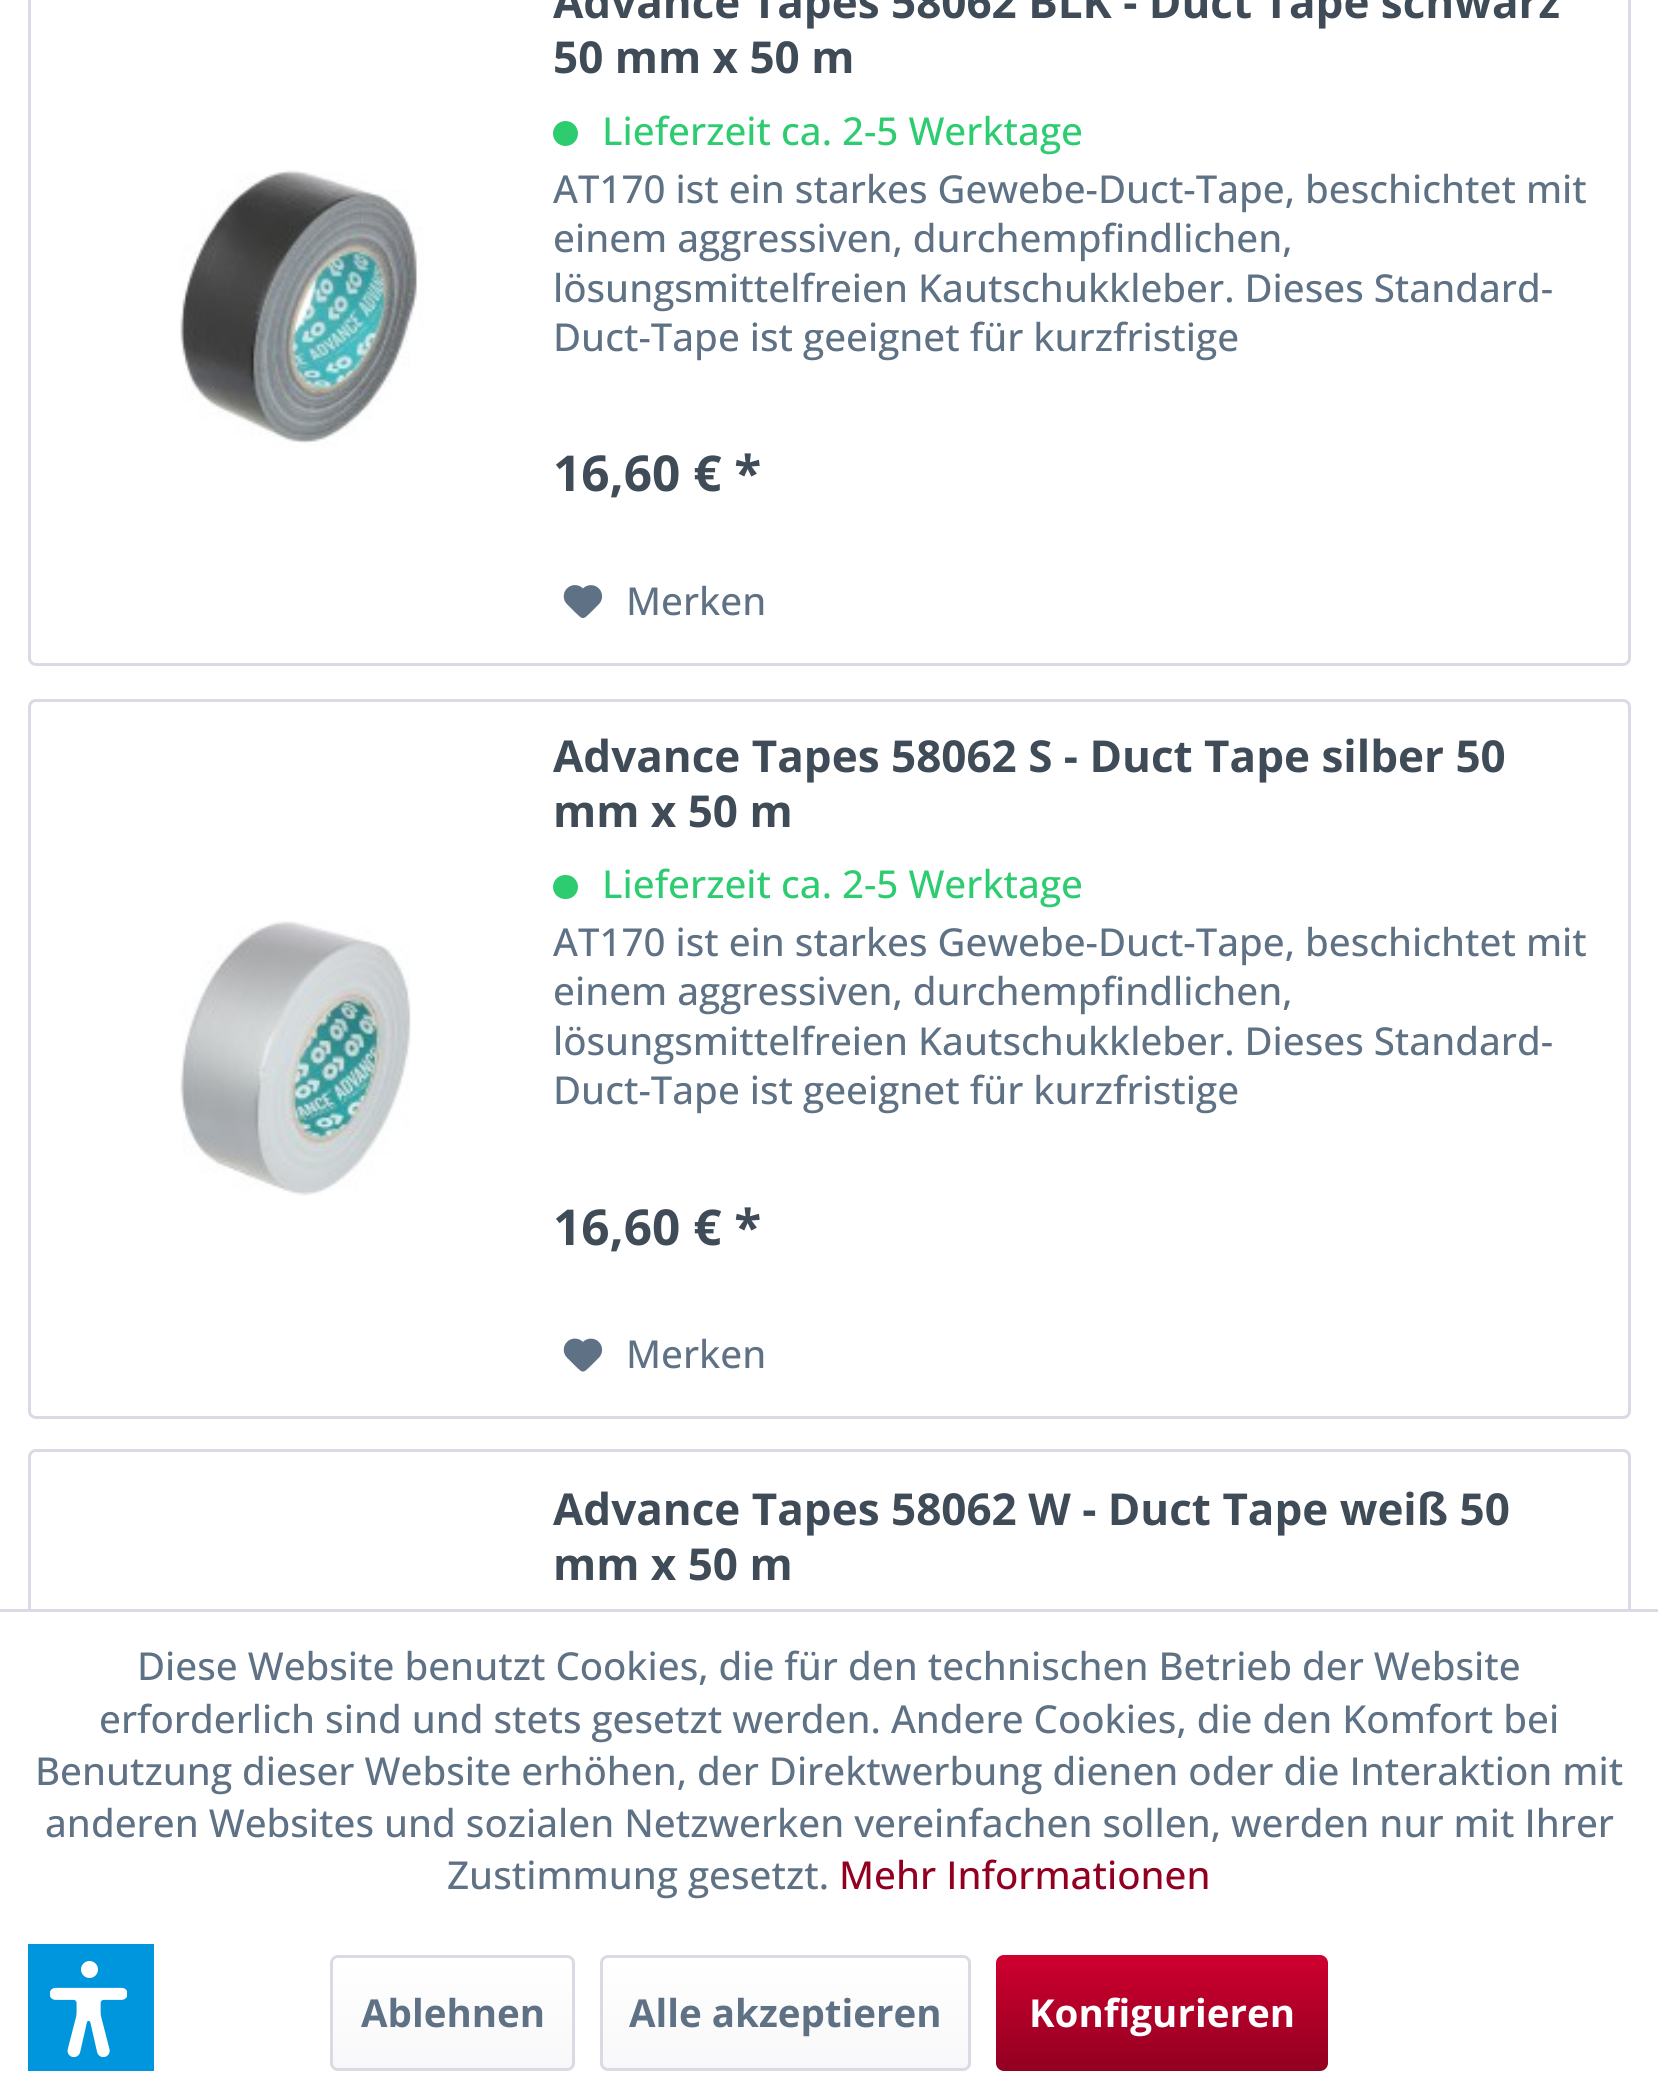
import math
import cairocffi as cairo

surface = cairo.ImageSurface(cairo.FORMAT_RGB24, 1658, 2097)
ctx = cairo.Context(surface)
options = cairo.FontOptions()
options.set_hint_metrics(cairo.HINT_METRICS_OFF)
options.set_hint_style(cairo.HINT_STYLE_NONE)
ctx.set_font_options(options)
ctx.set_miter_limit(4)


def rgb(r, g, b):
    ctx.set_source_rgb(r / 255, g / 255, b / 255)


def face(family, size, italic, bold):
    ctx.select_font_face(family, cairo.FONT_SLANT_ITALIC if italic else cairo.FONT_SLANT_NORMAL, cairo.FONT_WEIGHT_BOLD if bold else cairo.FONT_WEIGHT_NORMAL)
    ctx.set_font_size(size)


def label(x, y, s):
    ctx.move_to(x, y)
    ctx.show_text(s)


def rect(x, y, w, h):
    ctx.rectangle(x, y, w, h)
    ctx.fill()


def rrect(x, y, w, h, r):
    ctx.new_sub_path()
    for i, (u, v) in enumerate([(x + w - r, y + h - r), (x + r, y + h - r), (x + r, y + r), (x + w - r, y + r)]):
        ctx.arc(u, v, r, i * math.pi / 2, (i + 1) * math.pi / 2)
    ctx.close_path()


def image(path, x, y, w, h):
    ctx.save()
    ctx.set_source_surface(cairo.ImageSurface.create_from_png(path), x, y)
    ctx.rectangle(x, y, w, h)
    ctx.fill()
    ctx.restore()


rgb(255, 255, 255)
ctx.paint()
rrect(29.5, -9.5, 1600, 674, 6.5)
rgb(218, 218, 229)
ctx.set_line_width(3)
ctx.stroke()
face('Open Sans', 44, 0, 1)
rgb(63, 76, 88)
label(553, 18, 'Advance Tapes 58062 BLK - Duct Tape schwarz')
label(553, 73, '50 mm x 50 m')
rgb(46, 204, 113)
ctx.new_path()
ctx.arc(565.5, 133.5, 12.5, 0, 2 * math.pi)
ctx.fill()
face('Open Sans Medium', 38.5, 0, 0)
label(602, 145, 'Lieferzeit ca. 2-5 Werktage')
image('image0.png', 180, 170, 245, 277)
rgb(95, 114, 133)
label(553, 203, 'AT170 ist ein starkes Gewebe-Duct-Tape, beschichtet mit')
label(553, 252, 'einem aggressiven, durchempfindlichen,')
label(553, 302, 'lösungsmittelfreien Kautschukkleber. Dieses Standard-')
label(553, 351, 'Duct-Tape ist geeignet für kurzfristige')
face('Open Sans', 49.5, 0, 1)
rgb(63, 76, 88)
label(553, 491, '16,60 € *')
image('image1.png', 563, 585, 40, 33)
face('Open Sans Medium', 38.5, 0, 0)
rgb(95, 114, 133)
label(626, 615, 'Merken')
rrect(29.5, 700.5, 1600, 717, 6.5)
rgb(218, 218, 229)
ctx.stroke()
face('Open Sans', 44, 0, 1)
rgb(63, 76, 88)
label(553, 772, 'Advance Tapes 58062 S - Duct Tape silber 50')
label(553, 827, 'mm x 50 m')
rgb(46, 204, 113)
rrect(553, 875, 25, 24, 12)
ctx.fill()
face('Open Sans Medium', 38.5, 0, 0)
label(602, 898, 'Lieferzeit ca. 2-5 Werktage')
image('image2.png', 180, 921, 231, 275)
rgb(95, 114, 133)
label(553, 956, 'AT170 ist ein starkes Gewebe-Duct-Tape, beschichtet mit')
label(553, 1005, 'einem aggressiven, durchempfindlichen,')
label(553, 1055, 'lösungsmittelfreien Kautschukkleber. Dieses Standard-')
label(553, 1104, 'Duct-Tape ist geeignet für kurzfristige')
face('Open Sans', 49.5, 0, 1)
rgb(63, 76, 88)
label(553, 1245, '16,60 € *')
image('image3.png', 563, 1338, 40, 34)
face('Open Sans Medium', 38.5, 0, 0)
rgb(95, 114, 133)
label(626, 1368, 'Merken')
rrect(29.5, 1450.5, 1600, 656, 6.5)
rgb(218, 218, 229)
ctx.stroke()
face('Open Sans', 44, 0, 1)
rgb(63, 76, 88)
label(553, 1525, 'Advance Tapes 58062 W - Duct Tape weiß 50')
label(553, 1580, 'mm x 50 m')
rgb(255, 255, 255)
rect(28, 1612, 1603, 485)
rgb(218, 218, 229)
rect(0, 1609, 1658, 3)
face('Open Sans Medium', 38.5, 0, 0)
rgb(95, 114, 133)
label(137, 1680, 'Diese Website benutzt Cookies, die für den technischen Betrieb der Website')
label(99, 1733, 'erforderlich sind und stets gesetzt werden. Andere Cookies, die den Komfort bei')
label(35, 1785, 'Benutzung dieser Website erhöhen, der Direktwerbung dienen oder die Interaktion mit')
label(45, 1837, 'anderen Websites und sozialen Netzwerken vereinfachen sollen, werden nur mit Ihrer')
label(447, 1889, 'Zustimmung gesetzt.')
rgb(146, 0, 33)
label(839, 1889, 'Mehr Informationen')
gradient = cairo.LinearGradient(452, 1958, 452, 2068)
gradient.add_color_stop_rgba(0, 1, 1, 1, 1)
gradient.add_color_stop_rgba(1, 0.973, 0.973, 0.98, 1)
ctx.set_source(gradient)
rrect(333, 1958, 239, 110, 6)
ctx.fill()
rrect(331.5, 1956.5, 242, 113, 6.5)
rgb(218, 218, 229)
ctx.stroke()
face('Open Sans', 38.5, 0, 1)
rgb(95, 114, 133)
label(361, 2027, 'Ablehnen')
gradient = cairo.LinearGradient(785, 1958, 785, 2068)
gradient.add_color_stop_rgba(0, 1, 1, 1, 1)
gradient.add_color_stop_rgba(1, 0.973, 0.973, 0.98, 1)
ctx.set_source(gradient)
rrect(602, 1958, 366, 110, 6)
ctx.fill()
rrect(601.5, 1956.5, 368, 113, 6.5)
rgb(218, 218, 229)
ctx.stroke()
rgb(95, 114, 133)
label(629, 2027, 'Alle akzeptieren')
gradient = cairo.LinearGradient(1162, 1955, 1162, 2071)
gradient.add_color_stop_rgba(0, 0.812, 0, 0.184, 1)
gradient.add_color_stop_rgba(1, 0.573, 0, 0.129, 1)
ctx.set_source(gradient)
rrect(996, 1955, 332, 116, 8)
ctx.fill()
rgb(255, 255, 255)
label(1029, 2027, 'Konfigurieren')
rgb(0, 150, 222)
rect(28, 1944, 126, 127)
image('image4.png', 50, 1961, 77, 96)
surface.write_to_png('render.png')
